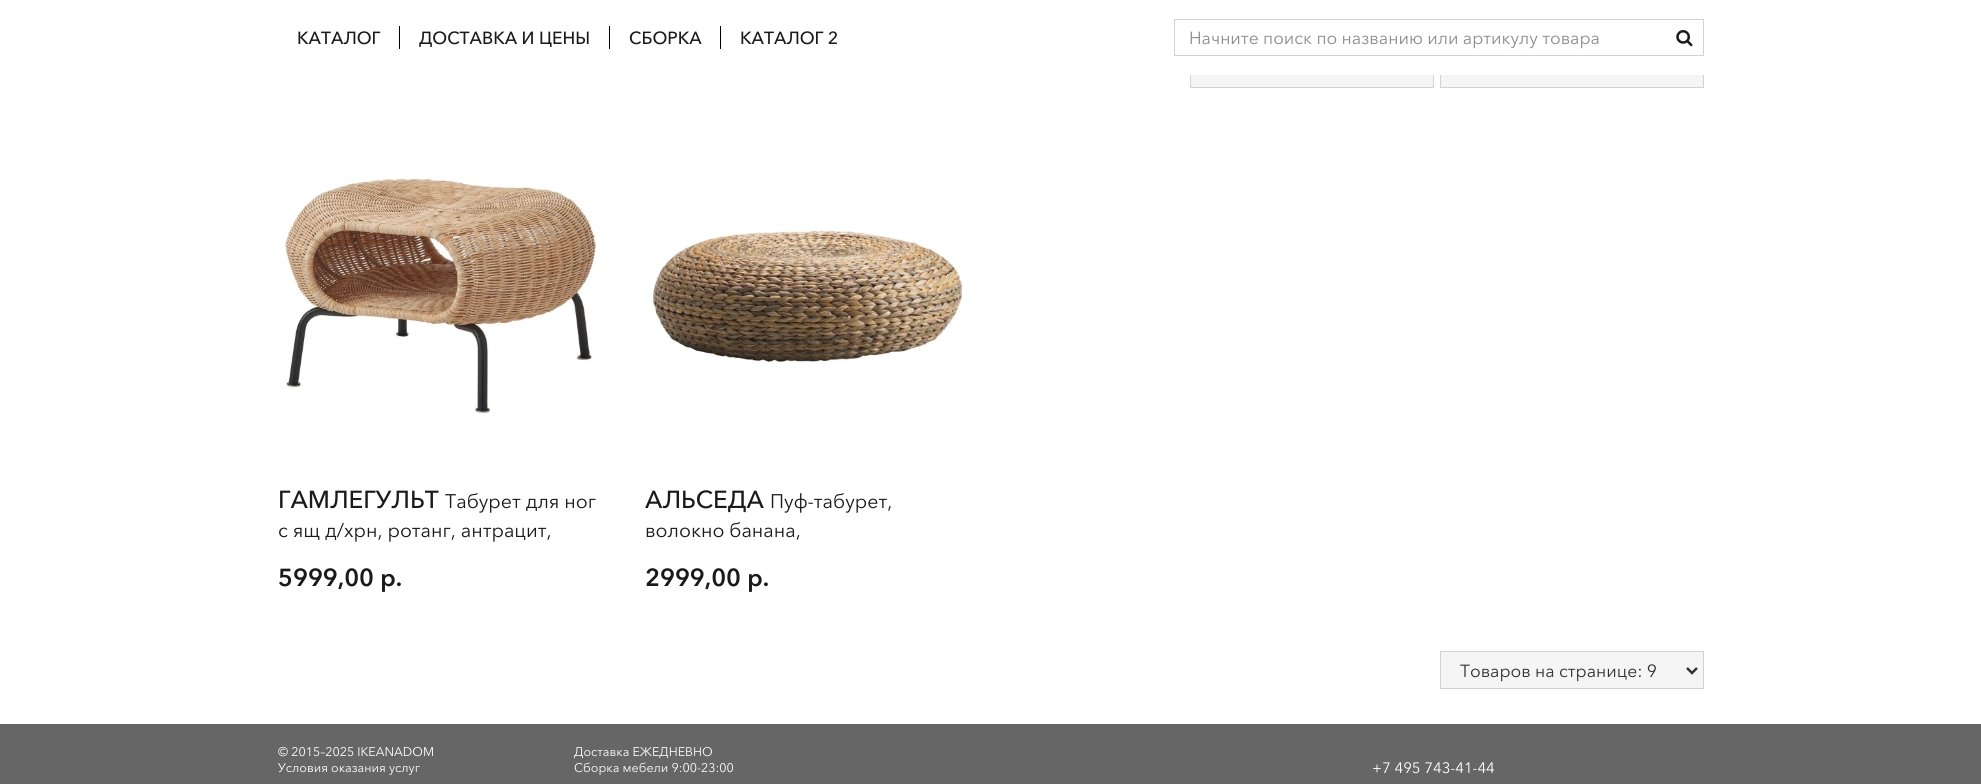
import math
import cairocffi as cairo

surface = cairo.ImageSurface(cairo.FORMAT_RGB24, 1981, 784)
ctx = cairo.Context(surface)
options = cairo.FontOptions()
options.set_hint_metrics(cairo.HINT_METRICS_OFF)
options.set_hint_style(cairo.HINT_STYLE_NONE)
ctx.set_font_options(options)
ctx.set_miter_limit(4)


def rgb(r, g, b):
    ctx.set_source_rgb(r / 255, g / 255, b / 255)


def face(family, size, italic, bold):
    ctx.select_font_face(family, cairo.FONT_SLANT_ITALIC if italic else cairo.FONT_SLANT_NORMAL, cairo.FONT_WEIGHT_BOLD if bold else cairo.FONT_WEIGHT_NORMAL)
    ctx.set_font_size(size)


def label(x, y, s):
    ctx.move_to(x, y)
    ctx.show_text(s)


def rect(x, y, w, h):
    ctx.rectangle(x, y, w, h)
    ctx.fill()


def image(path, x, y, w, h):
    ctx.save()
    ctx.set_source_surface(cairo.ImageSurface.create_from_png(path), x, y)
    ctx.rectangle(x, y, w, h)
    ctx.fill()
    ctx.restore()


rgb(255, 255, 255)
ctx.paint()
rgb(245, 245, 245)
rect(1191, 75, 242, 12)
ctx.rectangle(1190.5, 50.5, 243, 37)
rgb(210, 210, 210)
ctx.set_line_width(1)
ctx.stroke()
rgb(245, 245, 245)
rect(1441, 75, 262, 12)
ctx.rectangle(1440.5, 50.5, 263, 37)
rgb(210, 210, 210)
ctx.stroke()
rgb(255, 255, 255)
rect(1190, 50, 514, 25)
face('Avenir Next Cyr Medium', 17.5, 0, 0)
rgb(26, 26, 26)
label(297, 44, 'КАТАЛОГ')
rgb(0, 0, 0)
rect(399, 26, 1, 23)
rgb(26, 26, 26)
label(419, 44, 'ДОСТАВКА И ЦЕНЫ')
rgb(0, 0, 0)
rect(609, 26, 1, 23)
rgb(26, 26, 26)
label(629, 44, 'СБОРКА')
rgb(0, 0, 0)
rect(720, 26, 1, 23)
rgb(26, 26, 26)
label(740, 44, 'КАТАЛОГ 2')
ctx.rectangle(1174.5, 19.5, 529, 36)
rgb(210, 210, 210)
ctx.stroke()
face('Avenir Next Cyr', 17.5, 0, 0)
rgb(141, 141, 141)
label(1189, 44, 'Начните поиск по названию или артикулу товара')
image('image0.png', 1676, 30, 17, 17)
image('image1.png', 284, 176, 313, 238)
face('Avenir Next Cyr Medium', 24.5, 0, 0)
rgb(26, 26, 26)
label(278, 508, 'ГАМЛЕГУЛЬТ')
face('Avenir Next Cyr', 19.6, 0, 0)
label(445, 508, 'Табурет для ног')
label(278, 537, 'с ящ д/хрн, ротанг, антрацит,')
face('Avenir Next Cyr', 24.5, 0, 1)
label(278, 586, '5999,00 р.')
image('image2.png', 653, 230, 310, 133)
face('Avenir Next Cyr Medium', 24.5, 0, 0)
label(645, 508, 'АЛЬСЕДА')
face('Avenir Next Cyr', 19.6, 0, 0)
label(770, 508, 'Пуф-табурет,')
label(645, 537, 'волокно банана,')
face('Avenir Next Cyr', 24.5, 0, 1)
label(645, 586, '2999,00 р.')
rgb(245, 245, 245)
ctx.rectangle(1440.5, 651.5, 263, 37)
ctx.fill_preserve()
rgb(210, 210, 210)
ctx.stroke()
ctx.new_path()
ctx.move_to(1687, 668)
ctx.line_to(1692, 673)
ctx.line_to(1697, 668)
rgb(51, 51, 51)
ctx.set_line_width(2.5)
ctx.stroke()
face('Avenir Next Cyr', 17.5, 0, 0)
label(1460, 677, 'Товаров на странице: 9')
rgb(102, 102, 102)
rect(0, 724, 1981, 60)
face('Avenir Next Cyr', 12.5, 0, 0)
rgb(255, 255, 255)
label(278, 756, '© 2015–2025 IKEANADOM')
label(278, 772, 'Условия оказания услуг')
label(574, 756, 'Доставка ЕЖЕДНЕВНО')
label(574, 772, 'Сборка мебели 9:00-23:00')
face('Avenir Next Cyr', 15, 0, 0)
label(1372, 773, '+7 495 743-41-44')
surface.write_to_png('render.png')
